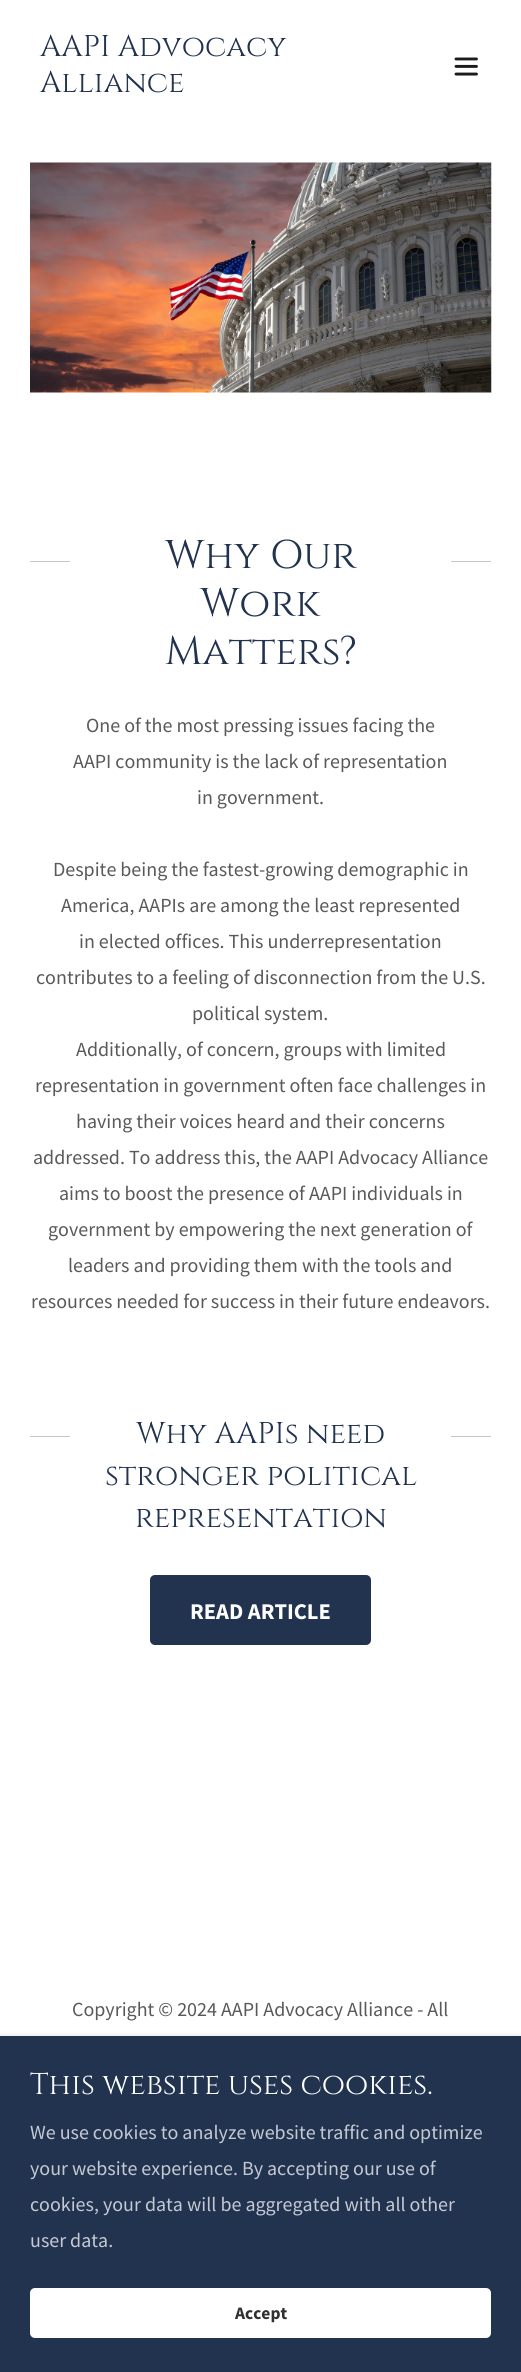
import math
import cairocffi as cairo

surface = cairo.ImageSurface(cairo.FORMAT_RGB24, 521, 2372)
ctx = cairo.Context(surface)
options = cairo.FontOptions()
options.set_hint_metrics(cairo.HINT_METRICS_OFF)
options.set_hint_style(cairo.HINT_STYLE_NONE)
ctx.set_font_options(options)
ctx.set_miter_limit(4)


def rgb(r, g, b):
    ctx.set_source_rgb(r / 255, g / 255, b / 255)


def face(family, size, italic, bold):
    ctx.select_font_face(family, cairo.FONT_SLANT_ITALIC if italic else cairo.FONT_SLANT_NORMAL, cairo.FONT_WEIGHT_BOLD if bold else cairo.FONT_WEIGHT_NORMAL)
    ctx.set_font_size(size)


def label(x, y, s):
    ctx.move_to(x, y)
    ctx.show_text(s)


def rect(x, y, w, h):
    ctx.rectangle(x, y, w, h)
    ctx.fill()


def rrect(x, y, w, h, r):
    ctx.new_sub_path()
    for i, (u, v) in enumerate([(x + w - r, y + h - r), (x + r, y + h - r), (x + r, y + r), (x + w - r, y + r)]):
        ctx.arc(u, v, r, i * math.pi / 2, (i + 1) * math.pi / 2)
    ctx.close_path()


def soft_shadow(x, y, w, h, r, blur, alpha):
    ctx.push_group_with_content(cairo.CONTENT_ALPHA)
    ctx.set_operator(cairo.OPERATOR_SOURCE)
    for i in range(15, -16, -2):
        e = blur * i / 6
        if min(w, h) + 2 * e > 0:
            ctx.set_source_rgba(0, 0, 0, alpha * math.erfc((i - 1) / 8.5) / 2)
            rrect(x - e, y - e, w + 2 * e, h + 2 * e, max(0, min(r + e + blur * .6, min(w, h) / 2 + e)))
            ctx.fill()
    ctx.mask(ctx.pop_group())


def image(path, x, y, w, h):
    ctx.save()
    ctx.set_source_surface(cairo.ImageSurface.create_from_png(path), x, y)
    ctx.rectangle(x, y, w, h)
    ctx.fill()
    ctx.restore()


rgb(255, 255, 255)
ctx.paint()
face('Cinzel', 30, 0, 0)
rgb(33, 51, 79)
label(40, 56, 'AAPI Advocacy')
label(40, 92, 'Alliance')
image('image0.png', 454, 57, 24, 19)
image('image1.png', 30, 162, 462, 231)
rgb(198, 198, 198)
rect(30, 561, 40, 1)
face('Cinzel', 40, 0, 0)
rgb(33, 51, 79)
label(165, 568, 'Why Our')
rgb(198, 198, 198)
rect(451, 561, 40, 1)
rgb(33, 51, 79)
label(200, 616, 'Work')
label(165, 664, 'Matters?')
face('Source Sans Pro', 20, 0, 0)
rgb(89, 89, 89)
label(86, 732, 'One of the most pressing issues facing the')
label(73, 768, 'AAPI community is the lack of representation')
label(197, 804, 'in government.')
label(53, 876, 'Despite being the fastest-growing demographic in')
label(61, 912, 'America, AAPIs are among the least represented')
label(79, 948, 'in elected offices. This underrepresentation')
label(36, 984, 'contributes to a feeling of disconnection from the U.S.')
label(192, 1020, 'political system.')
label(76, 1056, 'Additionally, of concern, groups with limited')
label(35, 1092, 'representation in government often face challenges in')
label(76, 1128, 'having their voices heard and their concerns')
label(33, 1164, 'addressed. To address this, the AAPI Advocacy Alliance')
label(59, 1200, 'aims to boost the presence of AAPI individuals in')
label(48, 1236, 'government by empowering the next generation of')
label(68, 1272, 'leaders and providing them with the tools and')
label(31, 1308, 'resources needed for success in their future endeavors.')
rgb(198, 198, 198)
rect(30, 1436, 40, 1)
face('Cinzel', 30, 0, 0)
rgb(33, 51, 79)
label(136, 1443, 'Why AAPIs need')
rgb(198, 198, 198)
rect(451, 1436, 40, 1)
rgb(33, 51, 79)
label(105, 1485, 'stronger political')
label(135, 1527, 'representation')
rrect(150, 1575, 221, 70, 5)
ctx.fill()
face('Source Sans Pro', 22.5, 0, 1)
rgb(255, 255, 255)
label(190, 1619, 'READ ARTICLE')
face('Source Sans Pro', 20, 0, 0)
rgb(89, 89, 89)
label(72, 2016, 'Copyright © 2024 AAPI Advocacy Alliance - All')
rgb(0, 0, 0)
soft_shadow(0, 2039, 521, 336, 0, 4, 0.3)
rgb(33, 51, 79)
rect(0, 2036, 521, 336)
face('Cinzel', 30, 0, 0)
rgb(255, 255, 255)
label(30, 2094, 'This website uses cookies.')
face('Source Sans Pro', 20, 0, 0)
rgb(198, 201, 210)
label(30, 2139, 'We use cookies to analyze website traffic and optimize')
label(30, 2175, 'your website experience. By accepting our use of')
label(30, 2211, 'cookies, your data will be aggregated with all other')
label(30, 2247, 'user data.')
rgb(255, 255, 255)
rrect(30, 2288, 461, 50, 5)
ctx.fill()
face('Source Sans Pro', 17.5, 0, 1)
rgb(48, 48, 48)
label(235, 2319, 'Accept')
surface.write_to_png('render.png')
